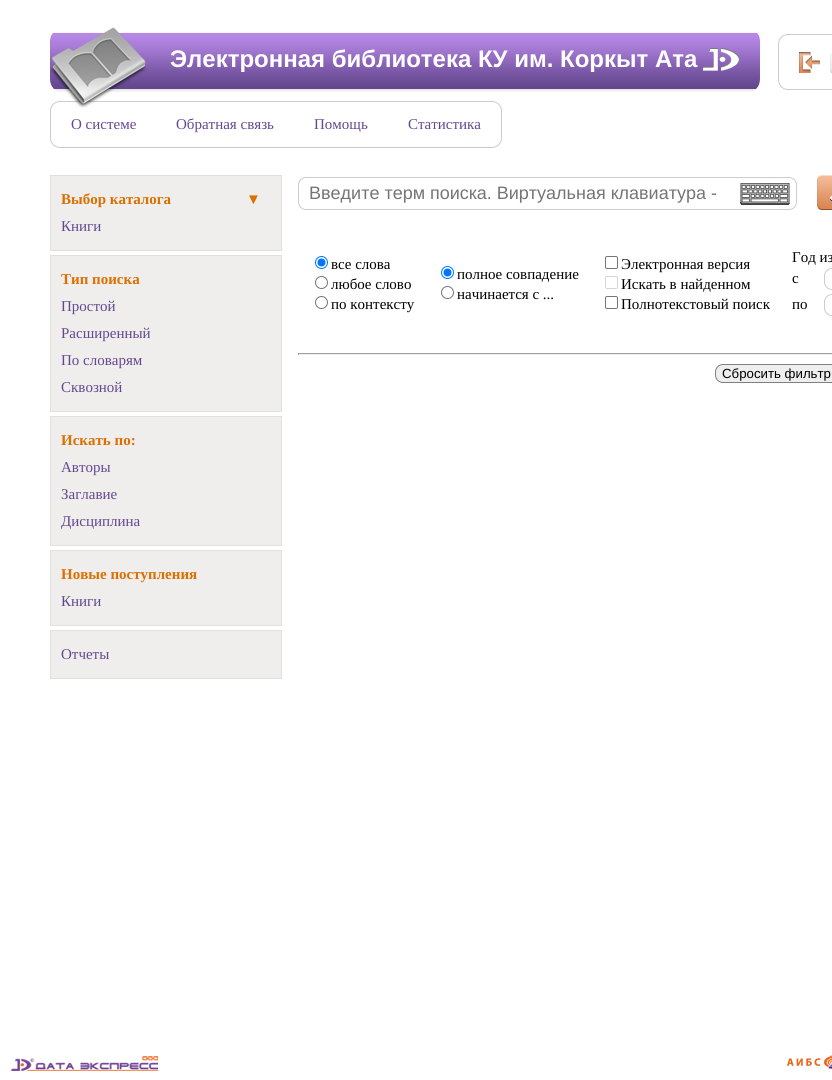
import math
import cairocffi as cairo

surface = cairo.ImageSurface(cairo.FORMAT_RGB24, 832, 1080)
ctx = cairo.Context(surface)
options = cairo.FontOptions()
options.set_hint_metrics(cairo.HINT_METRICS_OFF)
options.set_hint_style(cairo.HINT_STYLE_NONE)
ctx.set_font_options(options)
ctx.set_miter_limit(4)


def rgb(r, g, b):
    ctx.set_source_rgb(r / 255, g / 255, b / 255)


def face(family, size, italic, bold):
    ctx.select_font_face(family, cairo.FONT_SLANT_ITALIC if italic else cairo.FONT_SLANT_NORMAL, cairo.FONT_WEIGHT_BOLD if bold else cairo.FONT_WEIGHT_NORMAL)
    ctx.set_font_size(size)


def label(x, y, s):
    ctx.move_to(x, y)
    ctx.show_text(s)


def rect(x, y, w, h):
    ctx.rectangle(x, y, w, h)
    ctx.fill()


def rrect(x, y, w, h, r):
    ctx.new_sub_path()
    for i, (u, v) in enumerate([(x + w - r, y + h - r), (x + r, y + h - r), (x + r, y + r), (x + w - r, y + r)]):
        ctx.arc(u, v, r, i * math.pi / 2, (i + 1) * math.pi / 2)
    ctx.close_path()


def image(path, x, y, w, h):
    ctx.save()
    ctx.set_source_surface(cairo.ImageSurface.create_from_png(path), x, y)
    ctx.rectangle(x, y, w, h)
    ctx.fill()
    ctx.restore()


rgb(255, 255, 255)
ctx.paint()
image('image0.png', 50, 32, 710, 60)
rrect(50.5, 101.5, 451, 46, 9.5)
rgb(204, 204, 204)
ctx.set_line_width(1)
ctx.stroke()
image('image1.png', 50, 27, 96, 81)
face('Liberation Sans', 24, 0, 1)
rgb(255, 255, 255)
label(170, 67, 'Электронная библиотека КУ им. Коркыт Ата')
image('image2.png', 703, 48, 37, 23)
image('image3.png', 799, 52, 21, 21)
rrect(778.5, 34.5, 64, 55, 9.5)
rgb(204, 204, 204)
ctx.stroke()
image('image4.png', 830, 52, 2, 21)
face('Liberation Serif', 15, 0, 0)
rgb(101, 71, 144)
label(71, 129, 'О системе')
label(176, 129, 'Обратная связь')
label(314, 129, 'Помощь')
label(408, 129, 'Статистика')
rgb(239, 238, 237)
ctx.rectangle(50.5, 175.5, 231, 75)
ctx.fill_preserve()
rgb(226, 224, 223)
ctx.stroke()
face('Liberation Serif', 15, 0, 1)
rgb(219, 111, 0)
label(61, 204, 'Выбор каталога')
label(246, 204, '▼')
face('Liberation Serif', 15, 0, 0)
rgb(101, 71, 144)
label(61, 231, 'Книги')
rgb(239, 238, 237)
ctx.rectangle(50.5, 255.5, 231, 156)
ctx.fill_preserve()
rgb(226, 224, 223)
ctx.stroke()
face('Liberation Serif', 15, 0, 1)
rgb(219, 111, 0)
label(61, 284, 'Тип поиска')
face('Liberation Serif', 15, 0, 0)
rgb(101, 71, 144)
label(61, 311, 'Простой')
label(61, 338, 'Расширенный')
label(61, 365, 'По словарям')
label(61, 392, 'Сквозной')
rgb(239, 238, 237)
ctx.rectangle(50.5, 416.5, 231, 129)
ctx.fill_preserve()
rgb(226, 224, 223)
ctx.stroke()
face('Liberation Serif', 15, 0, 1)
rgb(219, 111, 0)
label(61, 445, 'Искать по:')
face('Liberation Serif', 15, 0, 0)
rgb(101, 71, 144)
label(61, 472, 'Авторы')
label(61, 499, 'Заглавие')
label(61, 526, 'Дисциплина')
rgb(239, 238, 237)
ctx.rectangle(50.5, 550.5, 231, 75)
ctx.fill_preserve()
rgb(226, 224, 223)
ctx.stroke()
face('Liberation Serif', 15, 0, 1)
rgb(219, 111, 0)
label(61, 579, 'Новые поступления')
face('Liberation Serif', 15, 0, 0)
rgb(101, 71, 144)
label(61, 606, 'Книги')
rgb(239, 238, 237)
ctx.rectangle(50.5, 630.5, 231, 48)
ctx.fill_preserve()
rgb(226, 224, 223)
ctx.stroke()
rgb(101, 71, 144)
label(61, 659, 'Отчеты')
rrect(298.5, 177.5, 498, 32, 7.5)
rgb(204, 204, 204)
ctx.stroke()
face('Liberation Sans', 18, 0, 0)
rgb(117, 117, 117)
label(309, 199, 'Введите терм поиска. Виртуальная клавиатура -')
image('image5.png', 740, 183, 50, 22)
image('image6.png', 817, 175, 15, 35)
ctx.arc(321.5, 262.5, 6, 0, 2 * math.pi)
rgb(0, 117, 255)
ctx.stroke()
ctx.arc(321.5, 262.5, 4, 0, 2 * math.pi)
ctx.fill()
face('Liberation Serif', 15, 0, 0)
rgb(0, 0, 0)
label(331, 269, 'все слова')
ctx.new_path()
ctx.arc(321.5, 282.5, 6, 0, 2 * math.pi)
rgb(118, 118, 118)
ctx.stroke()
rgb(0, 0, 0)
label(331, 289, 'любое слово')
ctx.new_path()
ctx.arc(321.5, 302.5, 6, 0, 2 * math.pi)
rgb(118, 118, 118)
ctx.stroke()
rgb(0, 0, 0)
label(331, 309, 'по контексту')
ctx.new_path()
ctx.arc(447.5, 272.5, 6, 0, 2 * math.pi)
rgb(0, 117, 255)
ctx.stroke()
ctx.arc(447.5, 272.5, 4, 0, 2 * math.pi)
ctx.fill()
rgb(0, 0, 0)
label(457, 279, 'полное совпадение')
ctx.new_path()
ctx.arc(447.5, 292.5, 6, 0, 2 * math.pi)
rgb(118, 118, 118)
ctx.stroke()
rgb(0, 0, 0)
label(457, 299, 'начинается с ...')
rrect(605.5, 256.5, 12, 12, 1.5)
rgb(118, 118, 118)
ctx.stroke()
rgb(0, 0, 0)
label(621, 269, 'Электронная версия')
rrect(605.5, 276.5, 12, 12, 1.5)
rgb(214, 214, 214)
ctx.stroke()
rgb(0, 0, 0)
label(621, 289, 'Искать в найденном')
rrect(605.5, 296.5, 12, 12, 1.5)
rgb(118, 118, 118)
ctx.stroke()
rgb(0, 0, 0)
label(621, 309, 'Полнотекстовый поиск')
label(792, 262, 'Год из')
label(792, 283, 'с')
rrect(824.5, 268.5, 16, 21, 7.5)
rgb(204, 204, 204)
ctx.stroke()
rgb(0, 0, 0)
label(792, 309, 'по')
rrect(824.5, 294.5, 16, 21, 7.5)
rgb(204, 204, 204)
ctx.stroke()
rgb(159, 159, 159)
rect(298, 353, 534, 1)
rgb(238, 238, 238)
rect(298, 354, 534, 1)
rgb(159, 159, 159)
rect(298, 353, 1, 2)
rgb(238, 238, 238)
rrect(715.5, 364.5, 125, 18, 7.5)
ctx.fill_preserve()
rgb(128, 128, 128)
ctx.stroke()
face('Liberation Sans', 13.25, 0, 0)
rgb(0, 0, 0)
label(722, 378, 'Сбросить фильтр')
image('image7.png', 11, 1056, 147, 15)
image('image8.png', 787, 1055, 45, 14)
surface.write_to_png('render.png')
